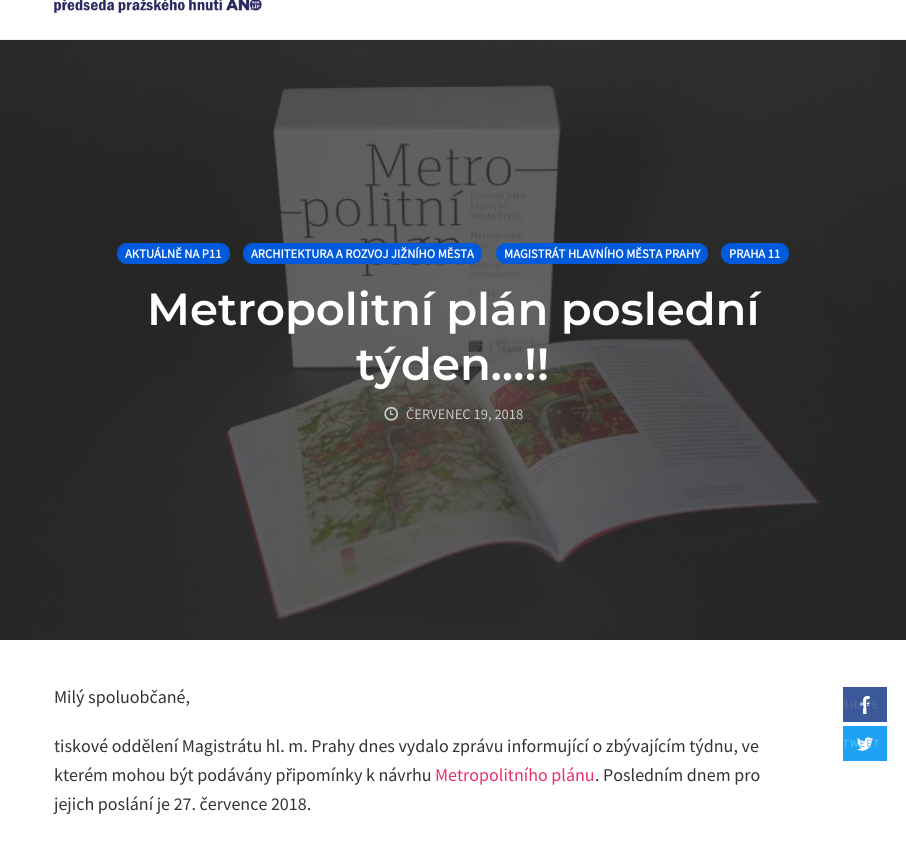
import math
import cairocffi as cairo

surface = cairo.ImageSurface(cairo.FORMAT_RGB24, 906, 854)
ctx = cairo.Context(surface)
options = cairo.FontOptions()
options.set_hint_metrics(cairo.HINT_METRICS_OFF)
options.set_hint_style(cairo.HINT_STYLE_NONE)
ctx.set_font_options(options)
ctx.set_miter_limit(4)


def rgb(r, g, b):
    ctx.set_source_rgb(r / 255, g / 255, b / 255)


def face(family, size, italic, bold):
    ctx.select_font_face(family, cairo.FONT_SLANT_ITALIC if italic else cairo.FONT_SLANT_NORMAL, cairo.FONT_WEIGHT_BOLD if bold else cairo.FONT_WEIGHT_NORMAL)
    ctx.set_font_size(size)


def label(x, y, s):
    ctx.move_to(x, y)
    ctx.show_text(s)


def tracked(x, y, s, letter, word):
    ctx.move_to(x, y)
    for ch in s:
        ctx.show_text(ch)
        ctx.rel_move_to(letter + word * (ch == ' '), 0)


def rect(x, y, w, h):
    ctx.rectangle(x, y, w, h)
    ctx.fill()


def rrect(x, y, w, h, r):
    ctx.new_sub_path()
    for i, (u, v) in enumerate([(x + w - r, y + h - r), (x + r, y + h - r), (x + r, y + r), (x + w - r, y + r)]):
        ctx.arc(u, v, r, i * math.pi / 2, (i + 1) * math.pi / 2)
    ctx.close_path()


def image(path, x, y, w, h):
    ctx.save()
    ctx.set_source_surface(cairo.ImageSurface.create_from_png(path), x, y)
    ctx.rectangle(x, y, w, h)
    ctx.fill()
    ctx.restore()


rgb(255, 255, 255)
ctx.paint()
rgb(240, 240, 240)
rect(0, 39, 906, 1)
image('image0.png', 54, 0, 208, 13)
image('image1.png', 0, 40, 906, 600)
rgb(0, 91, 220)
rrect(117, 243, 113, 21, 10)
ctx.fill()
face('Source Sans Pro', 12.6, 0, 1)
rgb(255, 255, 255)
label(125, 258, 'AKTUÁLNĚ NA P11')
rgb(0, 91, 220)
rrect(243, 243, 239, 21, 10)
ctx.fill()
rgb(255, 255, 255)
label(251, 258, 'ARCHITEKTURA A ROZVOJ JIŽNÍHO MĚSTA')
rgb(0, 91, 220)
rrect(496, 243, 212, 21, 10)
ctx.fill()
rgb(255, 255, 255)
label(504, 258, 'MAGISTRÁT HLAVNÍHO MĚSTA PRAHY')
rgb(0, 91, 220)
rrect(721, 243, 68, 21, 10)
ctx.fill()
rgb(255, 255, 255)
label(729, 258, 'PRAHA 11')
face('Montserrat SemiBold', 45, 0, 0)
label(147, 325, 'Metropolitní plán poslední')
label(356, 380, 'týden…!!')
image('image2.png', 384, 406, 15, 15)
face('Source Sans Pro', 14.5, 0, 0)
rgb(201, 199, 198)
label(406, 419, 'ČERVENEC 19, 2018')
face('Source Sans Pro', 18, 0, 0)
rgb(51, 51, 51)
label(54, 703, 'Milý spoluobčané,')
label(54, 752, 'tiskové oddělení Magistrátu hl. m. Prahy dnes vydalo zprávu informující o zbývajícím týdnu, ve')
label(54, 781, 'kterém mohou být podávány připomínky k návrhu')
rgb(232, 50, 101)
label(435, 781, 'Metropolitního plánu')
rgb(51, 51, 51)
label(595, 781, '. Posledním dnem pro')
label(54, 810, 'jejich poslání je 27. července 2018.')
rgb(59, 89, 152)
rect(843, 687, 44, 35)
image('image3.png', 860, 696, 10, 18)
face('Source Sans Pro', 11, 0, 0)
rgb(84, 110, 165)
tracked(843, 708, 'SHARE', 1, 0)
rgb(29, 161, 243)
rect(843, 726, 44, 35)
image('image4.png', 857, 737, 16, 14)
rgb(105, 193, 247)
tracked(843, 747, 'TWEET', 1, 0)
surface.write_to_png('render.png')
